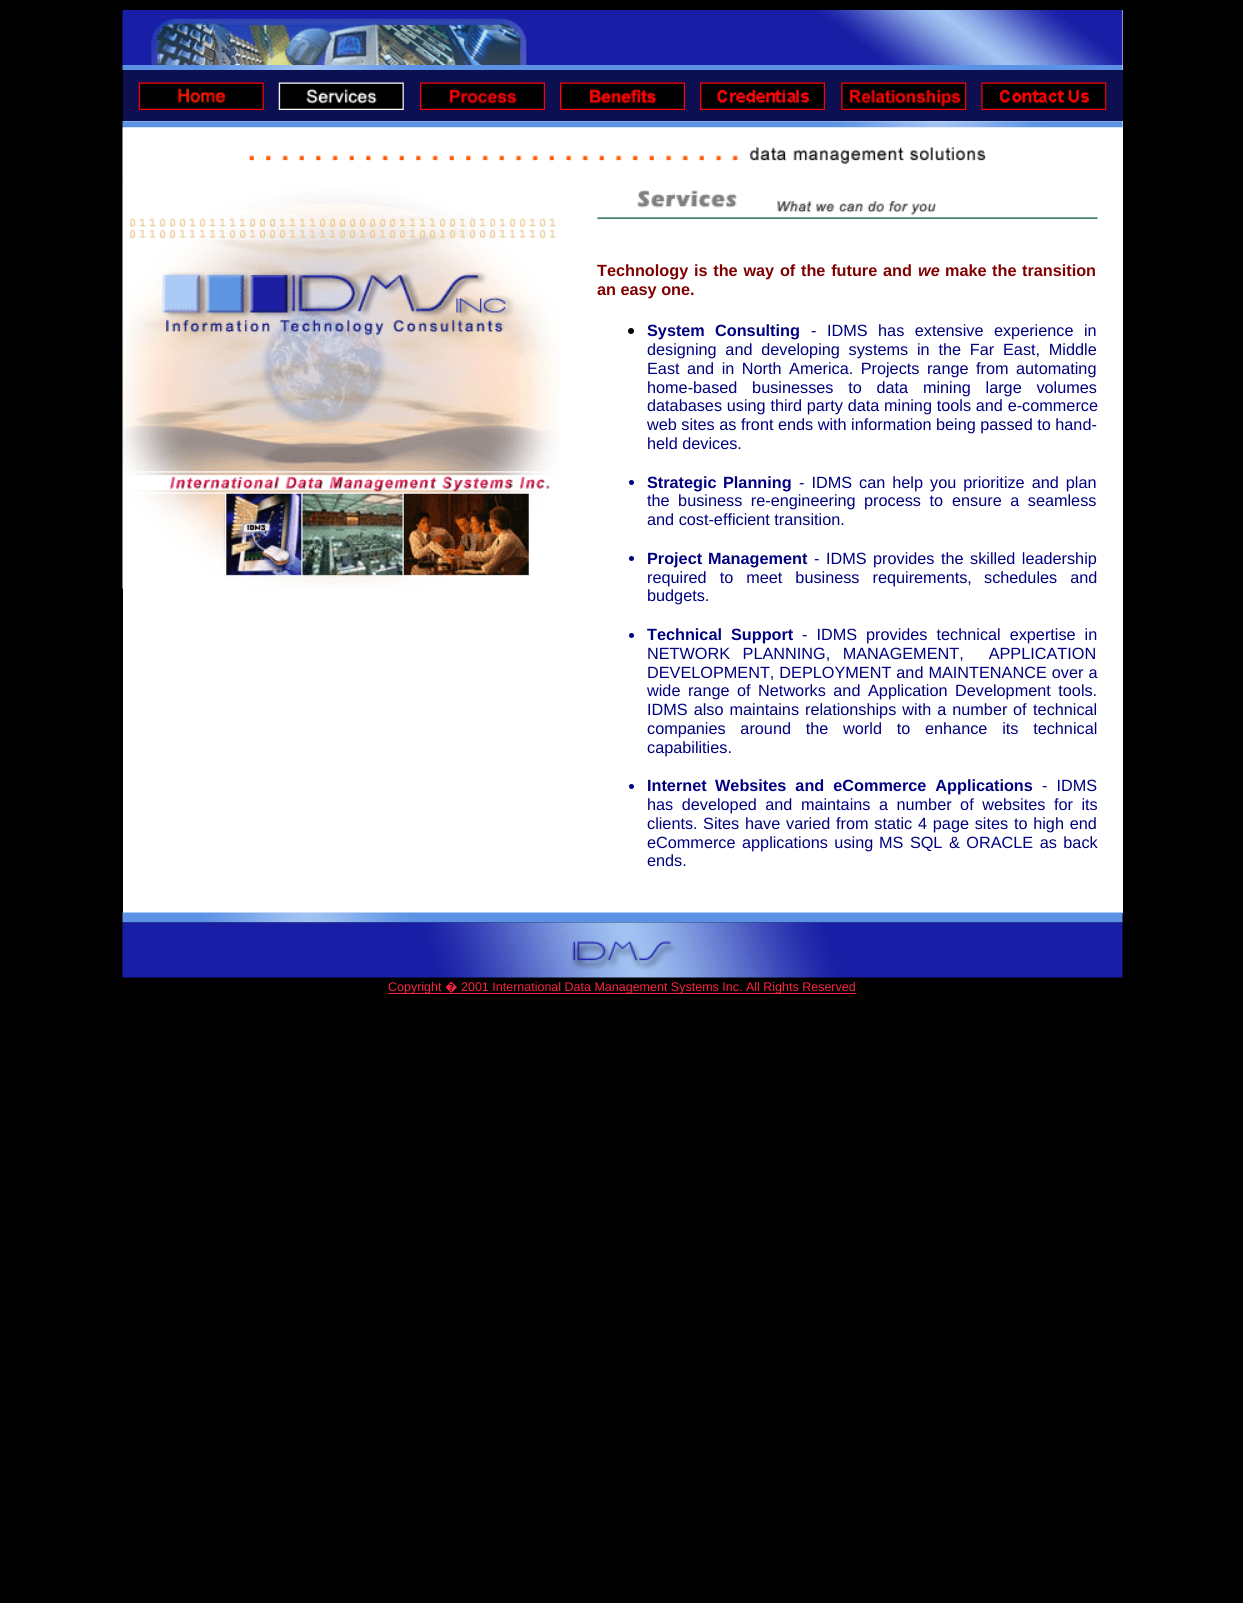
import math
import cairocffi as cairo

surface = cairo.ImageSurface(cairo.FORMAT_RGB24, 1243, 1603)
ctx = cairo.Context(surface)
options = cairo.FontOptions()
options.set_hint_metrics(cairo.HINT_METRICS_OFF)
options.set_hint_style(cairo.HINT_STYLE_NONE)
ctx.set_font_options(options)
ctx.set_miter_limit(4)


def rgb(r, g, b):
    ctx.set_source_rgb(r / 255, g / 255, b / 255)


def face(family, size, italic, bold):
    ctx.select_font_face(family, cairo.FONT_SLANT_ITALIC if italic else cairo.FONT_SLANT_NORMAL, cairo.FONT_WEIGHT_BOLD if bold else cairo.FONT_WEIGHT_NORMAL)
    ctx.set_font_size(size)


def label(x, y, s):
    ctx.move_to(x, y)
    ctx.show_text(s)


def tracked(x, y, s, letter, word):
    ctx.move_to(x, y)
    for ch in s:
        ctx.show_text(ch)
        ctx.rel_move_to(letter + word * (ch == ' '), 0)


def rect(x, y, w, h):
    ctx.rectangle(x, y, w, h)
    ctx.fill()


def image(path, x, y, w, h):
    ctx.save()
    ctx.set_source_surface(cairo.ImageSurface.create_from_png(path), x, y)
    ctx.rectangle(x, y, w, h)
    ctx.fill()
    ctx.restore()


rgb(0, 0, 0)
ctx.paint()
rgb(255, 255, 255)
rect(1122, 10, 1, 60)
image('image0.png', 122, 10, 1001, 55)
image('image1.png', 122, 65, 1001, 5)
rgb(13, 16, 80)
rect(123, 70, 1000, 51)
image('image2.png', 138, 82, 126, 28)
image('image3.png', 278, 82, 126, 28)
image('image4.png', 420, 82, 125, 28)
image('image5.png', 560, 82, 125, 28)
image('image6.png', 700, 82, 125, 28)
image('image7.png', 841, 82, 126, 28)
image('image8.png', 981, 82, 126, 28)
rgb(255, 255, 255)
rect(123, 121, 1000, 792)
image('image9.png', 122, 121, 1001, 7)
image('image10.png', 122, 127, 1001, 56)
image('image11.png', 122, 182, 438, 407)
image('image12.png', 597, 190, 501, 29)
face('Liberation Sans', 16.25, 0, 1)
rgb(128, 0, 0)
tracked(597, 276, 'Technology is the way of the future and', 0, 1.25)
face('Liberation Sans', 16.25, 1, 1)
label(918, 276, 'we')
face('Liberation Sans', 16.25, 0, 1)
tracked(945, 276, 'make the transition', 0, 1)
label(597, 295, 'an easy one.')
rgb(0, 0, 0)
ctx.new_path()
ctx.arc(631, 331, 3, 0, 2 * math.pi)
ctx.fill()
rgb(0, 0, 128)
label(647, 336, 'System')
label(715, 336, 'Consulting')
face('Liberation Sans', 16.25, 0, 0)
tracked(811, 336, '- IDMS has extensive experience in', 0, 6)
tracked(647, 355, 'designing and developing systems in the Far', 0, 4.25)
tracked(1003, 355, 'East, Middle', 0, 4.25)
tracked(647, 374, 'East and in North America. Projects range from automating', 0, 3)
tracked(647, 393, 'home-based businesses to data mining large volumes', 0, 10.25)
tracked(647, 411, 'databases using third party data mining tools and e-commerce', 0, 0.25)
label(647, 430, 'web sites as front ends with information being passed to hand-')
label(647, 449, 'held devices.')
ctx.new_path()
ctx.arc(631.5, 482.5, 2.5, 0, 2 * math.pi)
ctx.fill()
face('Liberation Sans', 16.25, 0, 1)
label(647, 488, 'Strategic')
label(723, 488, 'Planning')
face('Liberation Sans', 16.25, 0, 0)
tracked(799, 488, '- IDMS can help you prioritize and plan', 0, 2.5)
tracked(647, 506, 'the business re-engineering process to', 0, 4)
tracked(952, 506, 'ensure a seamless', 0, 4)
label(647, 525, 'and cost-efficient transition.')
ctx.new_path()
ctx.arc(631.5, 558.5, 2.5, 0, 2 * math.pi)
ctx.fill()
face('Liberation Sans', 16.25, 0, 1)
label(647, 564, 'Project')
label(708, 564, 'Management')
face('Liberation Sans', 16.25, 0, 0)
tracked(814, 564, '- IDMS provides the skilled leadership', 0, 2)
tracked(647, 583, 'required to meet business requirements,', 0, 8.5)
tracked(984, 583, 'schedules and', 0, 8.5)
label(647, 601, 'budgets.')
ctx.new_path()
ctx.arc(631.5, 635.5, 2.5, 0, 2 * math.pi)
ctx.fill()
face('Liberation Sans', 16.25, 0, 1)
label(647, 640, 'Technical')
label(731, 640, 'Support')
face('Liberation Sans', 16.25, 0, 0)
tracked(802, 640, '- IDMS provides technical expertise in', 0, 4.5)
tracked(647, 659, 'NETWORK PLANNING, MANAGEMENT,  APPLICATION', 0, 8)
tracked(647, 678, 'DEVELOPMENT, DEPLOYMENT and MAINTENANCE over a', 0, 0.5)
tracked(647, 696, 'wide range of Networks and', 0, 3)
tracked(868, 696, 'Application Development tools.', 0, 3)
tracked(647, 715, 'IDMS also maintains relationships with a number', 0, 1.5)
tracked(1013, 715, 'of technical', 0, 2)
tracked(647, 734, 'companies around the world to enhance its technical', 0, 10.25)
label(647, 753, 'capabilities.')
ctx.new_path()
ctx.arc(631.5, 786.5, 2.5, 0, 2 * math.pi)
ctx.fill()
face('Liberation Sans', 16.25, 0, 1)
label(647, 791, 'Internet')
tracked(715, 791, 'Websites and eCommerce Applications', 0, 4.5)
face('Liberation Sans', 16.25, 0, 0)
tracked(1042, 791, '- IDMS', 0, 4.5)
tracked(647, 810, 'has developed and maintains a number of websites for its', 0, 4)
tracked(647, 829, 'clients. Sites', 0, 1)
tracked(745, 829, 'have varied from static 4 page sites to high end', 0, 1.25)
tracked(647, 848, 'eCommerce applications using', 0, 2)
tracked(879, 848, 'MS SQL & ORACLE as back', 0, 2)
label(647, 866, 'ends.')
image('image13.png', 122, 912, 1001, 11)
image('image14.png', 122, 922, 1001, 56)
rgb(250, 35, 66)
rect(388, 993, 468, 1)
face('Liberation Sans', 12.5, 0, 0)
label(388, 991, 'Copyright')
face('Noto Sans', 12.5, 0, 0)
label(445, 991, '�')
face('Liberation Sans', 12.5, 0, 0)
label(461, 991, '2001 International Data Management Systems Inc. All Rights Reserved')
surface.write_to_png('render.png')
